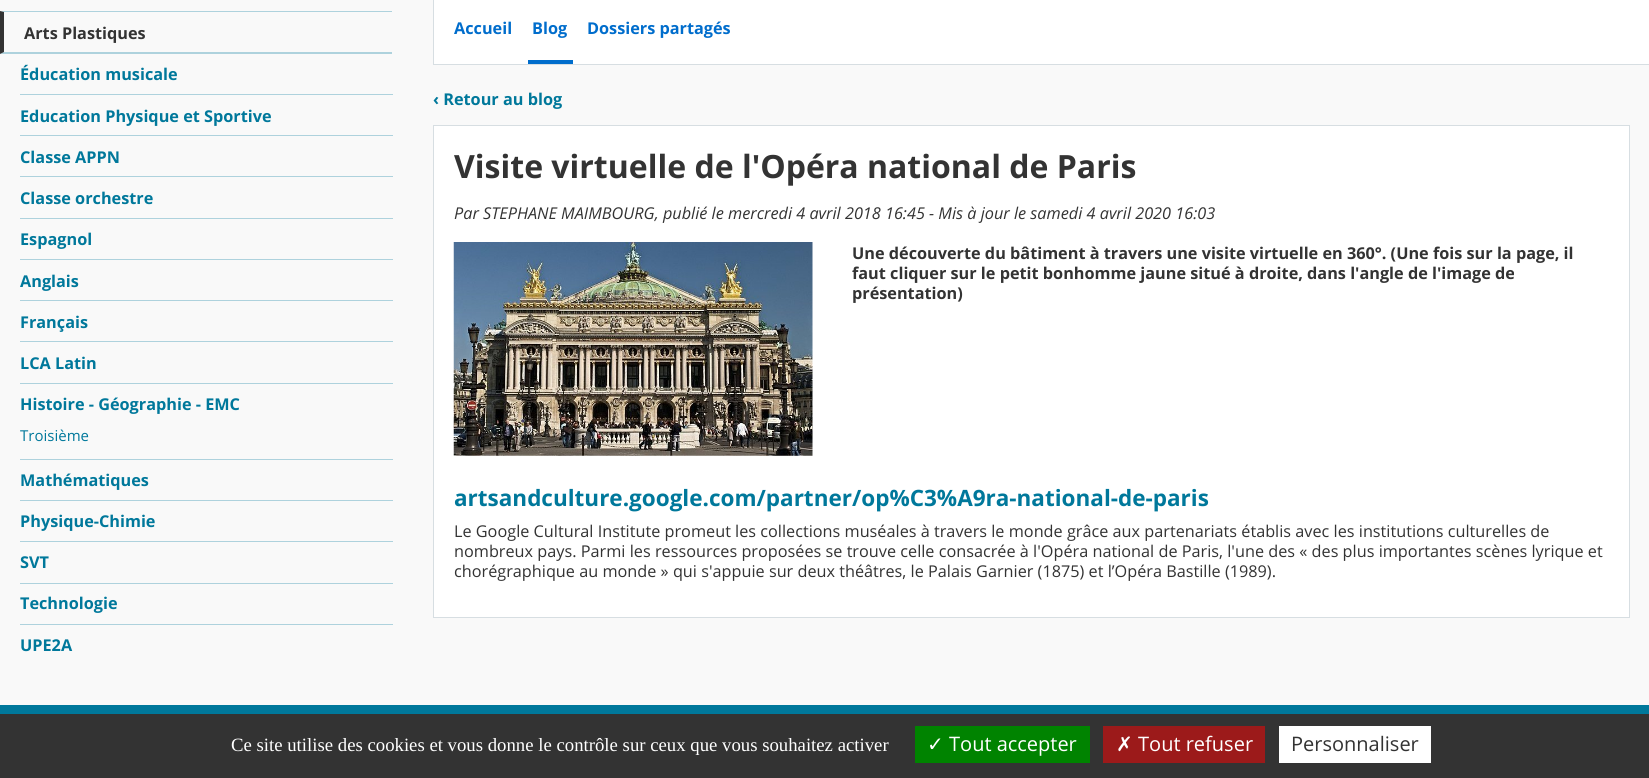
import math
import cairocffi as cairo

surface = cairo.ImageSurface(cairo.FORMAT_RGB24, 1649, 778)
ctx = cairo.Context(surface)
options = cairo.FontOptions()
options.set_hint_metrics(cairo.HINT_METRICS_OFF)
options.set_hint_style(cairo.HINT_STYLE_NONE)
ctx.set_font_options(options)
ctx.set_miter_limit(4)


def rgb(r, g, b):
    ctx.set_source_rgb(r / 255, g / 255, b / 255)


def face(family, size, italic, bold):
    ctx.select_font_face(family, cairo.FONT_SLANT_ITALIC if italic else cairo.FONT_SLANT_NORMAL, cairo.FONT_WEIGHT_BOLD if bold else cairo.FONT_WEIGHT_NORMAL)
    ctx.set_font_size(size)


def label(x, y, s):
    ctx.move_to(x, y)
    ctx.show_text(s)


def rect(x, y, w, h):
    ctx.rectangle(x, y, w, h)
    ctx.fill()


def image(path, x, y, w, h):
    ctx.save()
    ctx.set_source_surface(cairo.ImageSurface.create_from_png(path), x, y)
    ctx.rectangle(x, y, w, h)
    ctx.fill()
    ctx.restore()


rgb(249, 249, 249)
ctx.paint()
rgb(174, 210, 221)
ctx.new_path()
ctx.move_to(0, 11)
ctx.line_to(392, 11)
ctx.line_to(392, 12)
ctx.line_to(4, 12)
ctx.close_path()
ctx.fill()
ctx.new_path()
ctx.move_to(392, 54)
ctx.line_to(0, 54)
ctx.line_to(4, 52)
ctx.line_to(392, 52)
ctx.close_path()
ctx.fill()
rgb(51, 51, 51)
ctx.new_path()
ctx.move_to(0, 54)
ctx.line_to(0, 11)
ctx.line_to(4, 12)
ctx.line_to(4, 52)
ctx.close_path()
ctx.fill()
face('Open Sans', 16.25, 0, 1)
label(24, 39, 'Arts Plastiques')
rgb(174, 210, 221)
rect(20, 94, 373, 1)
rgb(0, 120, 155)
label(20, 80, 'Éducation musicale')
rgb(174, 210, 221)
rect(20, 135, 373, 1)
rgb(0, 120, 155)
label(20, 122, 'Education Physique et Sportive')
rgb(174, 210, 221)
rect(20, 176, 373, 1)
rgb(0, 120, 155)
label(20, 163, 'Classe APPN')
rgb(174, 210, 221)
rect(20, 218, 373, 1)
rgb(0, 120, 155)
label(20, 204, 'Classe orchestre')
rgb(174, 210, 221)
rect(20, 259, 373, 1)
rgb(0, 120, 155)
label(20, 245, 'Espagnol')
rgb(174, 210, 221)
rect(20, 300, 373, 1)
rgb(0, 120, 155)
label(20, 287, 'Anglais')
rgb(174, 210, 221)
rect(20, 341, 373, 1)
rgb(0, 120, 155)
label(20, 328, 'Français')
rgb(174, 210, 221)
rect(20, 383, 373, 1)
rgb(0, 120, 155)
label(20, 369, 'LCA Latin')
rgb(174, 210, 221)
rect(20, 459, 373, 1)
rgb(0, 120, 155)
label(20, 410, 'Histoire - Géographie - EMC')
face('Open Sans', 15, 0, 0)
label(20, 441, 'Troisième')
rgb(174, 210, 221)
rect(20, 500, 373, 1)
face('Open Sans', 16.25, 0, 1)
rgb(0, 120, 155)
label(20, 486, 'Mathématiques')
rgb(174, 210, 221)
rect(20, 541, 373, 1)
rgb(0, 120, 155)
label(20, 527, 'Physique-Chimie')
rgb(174, 210, 221)
rect(20, 583, 373, 1)
rgb(0, 120, 155)
label(20, 568, 'SVT')
rgb(174, 210, 221)
rect(20, 624, 373, 1)
rgb(0, 120, 155)
label(20, 609, 'Technologie')
label(20, 651, 'UPE2A')
rgb(255, 255, 255)
rect(434, 0, 1215, 64)
rgb(215, 222, 226)
rect(433, 64, 1216, 1)
rect(433, 0, 1, 65)
rgb(0, 109, 204)
label(454, 34, 'Accueil')
rect(528, 60, 45, 4)
label(532, 34, 'Blog')
label(587, 34, 'Dossiers partagés')
rgb(0, 120, 155)
label(433, 105, '‹ Retour au blog')
rgb(255, 255, 255)
ctx.rectangle(433.5, 125.5, 1196, 492)
ctx.fill_preserve()
rgb(215, 222, 226)
ctx.set_line_width(1)
ctx.stroke()
face('Open Sans', 32, 0, 1)
rgb(51, 51, 51)
label(454, 178, 'Visite virtuelle de l\'Opéra national de Paris')
face('Open Sans', 16.25, 1, 0)
label(454, 219, 'Par STEPHANE MAIMBOURG, publié le mercredi 4 avril 2018 16:45 - Mis à jour le samedi 4 avril 2020 16:03')
image('image0.png', 453, 242, 360, 214)
face('Open Sans', 16.25, 0, 1)
label(852, 259, 'Une découverte du bâtiment à travers une visite virtuelle en 360°. (Une fois sur la page, il')
label(852, 279, 'faut cliquer sur le petit bonhomme jaune situé à droite, dans l\'angle de l\'image de')
label(852, 299, 'présentation)')
face('Open Sans', 22.5, 0, 1)
rgb(0, 120, 155)
label(454, 506, 'artsandculture.google.com/partner/op%C3%A9ra-national-de-paris')
face('Open Sans', 16.25, 0, 0)
rgb(51, 51, 51)
label(454, 537, 'Le Google Cultural Institute promeut les collections muséales à travers le monde grâce aux partenariats établis avec les institutions culturelles de')
label(454, 557, 'nombreux pays. Parmi les ressources proposées se trouve celle consacrée à l\'Opéra national de Paris, l\'une des « des plus importantes scènes lyrique et')
label(454, 577, 'chorégraphique au monde » qui s\'appuie sur deux théâtres, le Palais Garnier (1875) et l’Opéra Bastille (1989).')
rgb(0, 120, 155)
rect(0, 705, 1649, 9)
rgb(51, 51, 51)
rect(0, 714, 1649, 64)
face('Liberation Serif', 18.75, 0, 0)
rgb(255, 255, 255)
label(231, 751, 'Ce site utilise des cookies et vous donne le contrôle sur ceux que vous souhaitez activer')
rgb(0, 131, 0)
rect(915, 726, 175, 37)
face('DejaVu Sans', 20, 0, 0)
rgb(255, 255, 255)
label(927, 751, '✓')
face('Open Sans', 20, 0, 0)
label(949, 751, 'Tout accepter')
rgb(156, 26, 26)
rect(1103, 726, 162, 37)
face('DejaVu Sans', 20, 0, 0)
rgb(255, 255, 255)
label(1116, 751, '✗')
face('Open Sans', 20, 0, 0)
label(1138, 751, 'Tout refuser')
rect(1279, 726, 152, 37)
rgb(51, 51, 51)
label(1291, 751, 'Personnaliser')
surface.write_to_png('render.png')
